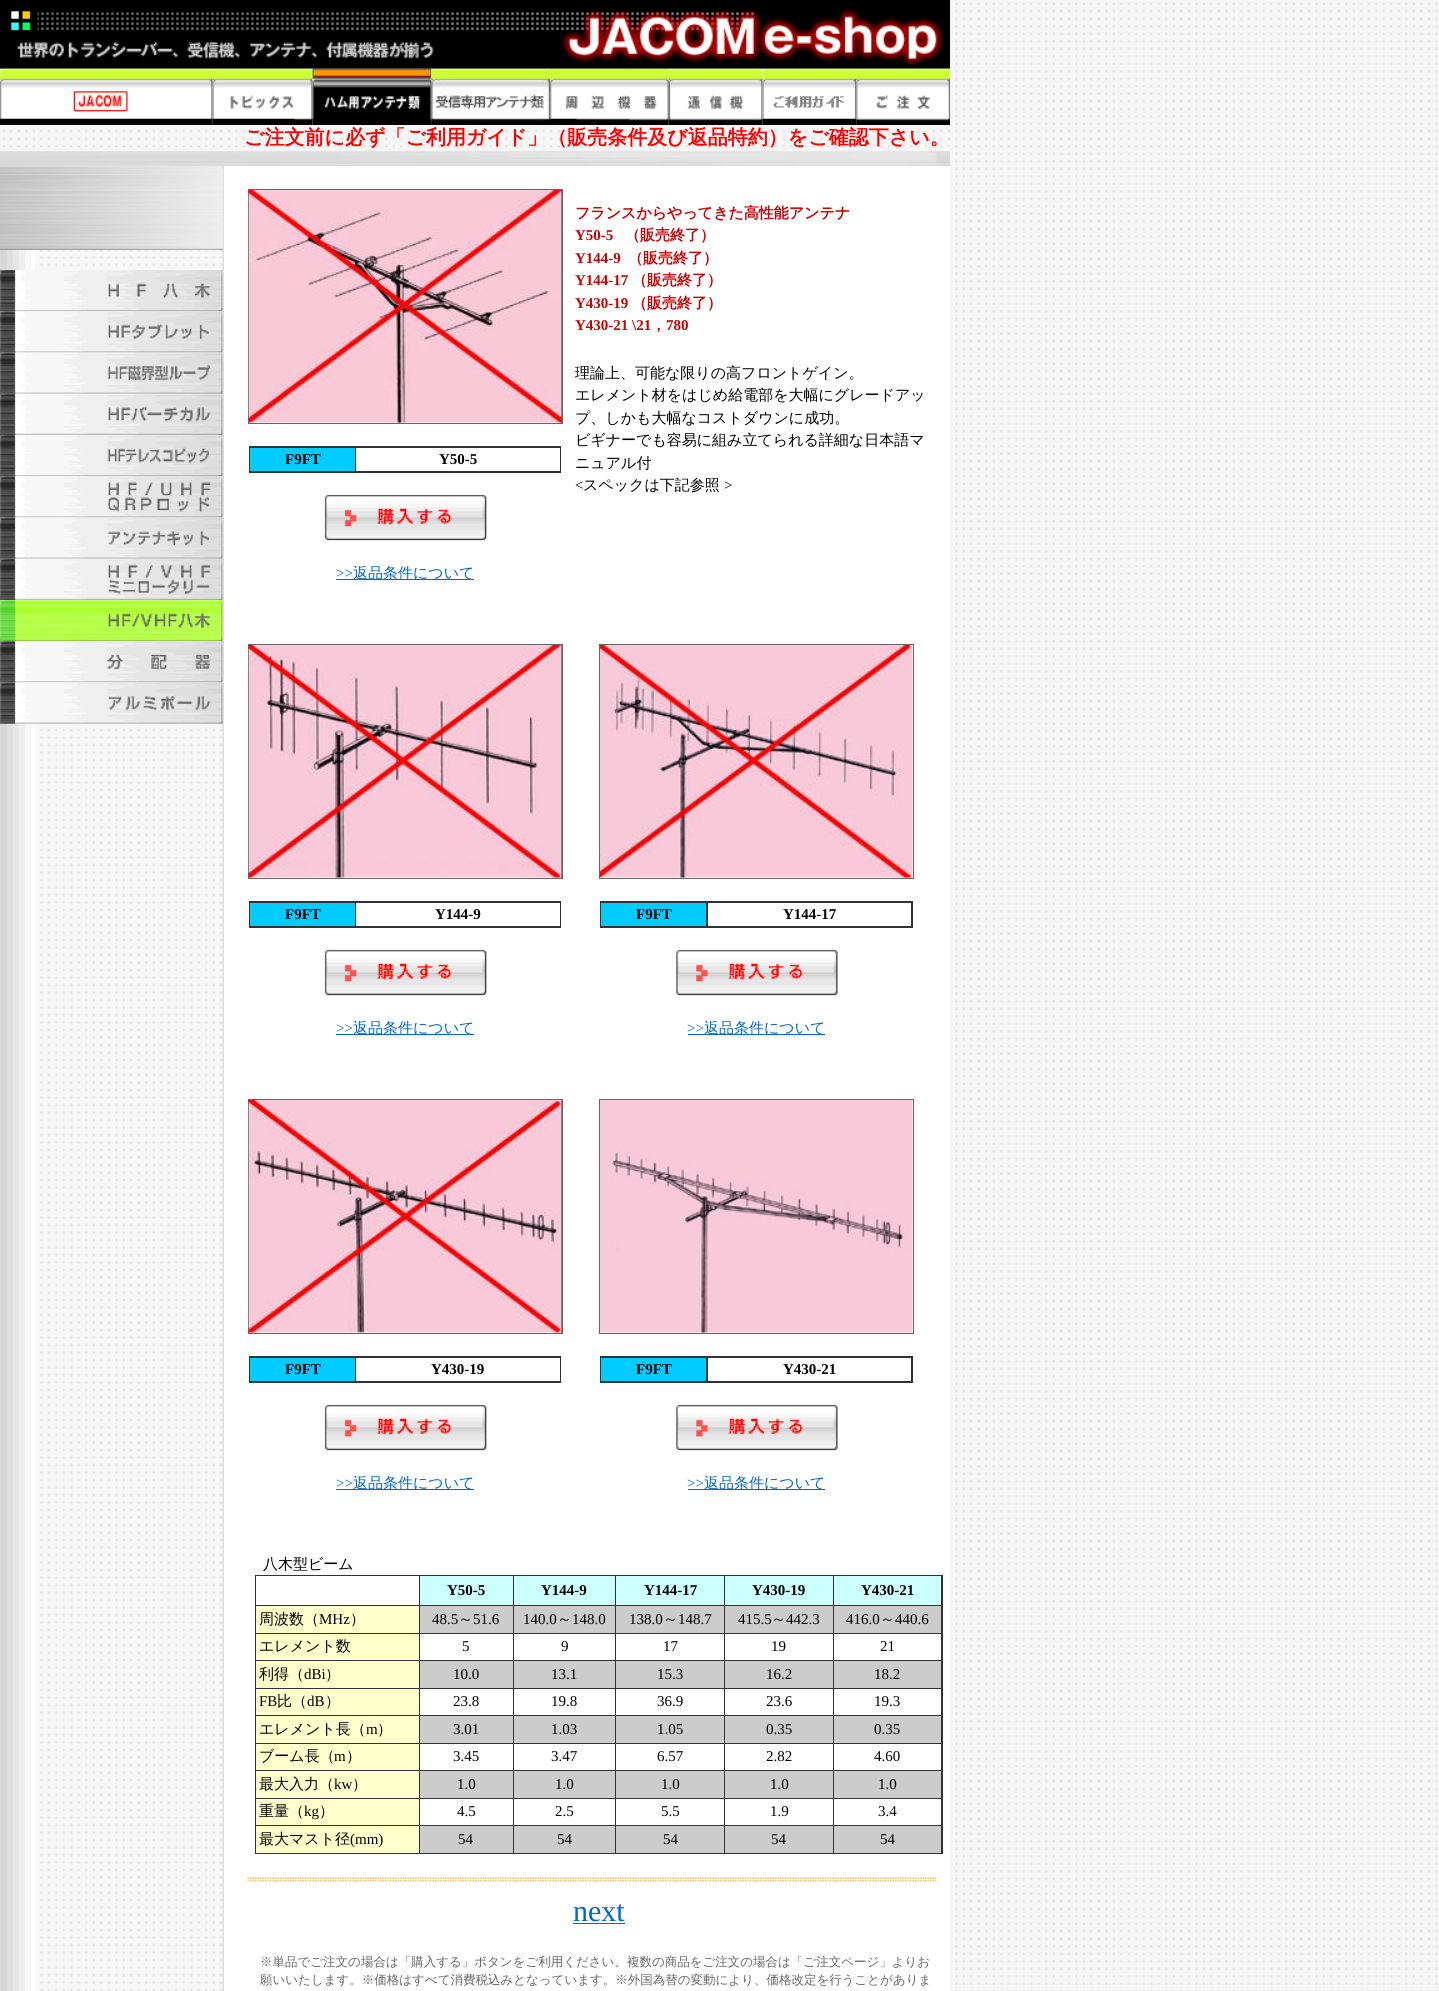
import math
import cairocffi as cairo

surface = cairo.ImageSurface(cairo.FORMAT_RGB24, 1439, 1991)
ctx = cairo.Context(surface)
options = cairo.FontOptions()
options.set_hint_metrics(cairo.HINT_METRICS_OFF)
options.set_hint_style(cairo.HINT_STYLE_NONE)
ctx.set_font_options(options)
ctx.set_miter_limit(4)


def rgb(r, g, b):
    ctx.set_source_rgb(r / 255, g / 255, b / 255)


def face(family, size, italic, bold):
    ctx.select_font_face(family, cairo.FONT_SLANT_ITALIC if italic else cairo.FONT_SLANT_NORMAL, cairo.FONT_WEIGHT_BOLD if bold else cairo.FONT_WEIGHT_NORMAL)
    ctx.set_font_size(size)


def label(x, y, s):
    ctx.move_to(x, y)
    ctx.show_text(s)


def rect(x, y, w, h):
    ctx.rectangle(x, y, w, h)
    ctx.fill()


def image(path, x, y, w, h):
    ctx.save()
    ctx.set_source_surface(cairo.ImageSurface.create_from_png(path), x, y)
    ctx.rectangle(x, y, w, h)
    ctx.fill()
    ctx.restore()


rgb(255, 255, 255)
ctx.paint()
image('image0.png', 0, 0, 1439, 1991)
image('image1.png', 0, 0, 950, 69)
image('image2.png', 0, 68, 213, 57)
image('image3.png', 212, 68, 101, 57)
image('image4.png', 312, 68, 120, 57)
image('image5.png', 431, 68, 119, 57)
image('image6.png', 550, 68, 119, 57)
image('image7.png', 668, 68, 95, 57)
image('image8.png', 762, 68, 95, 57)
image('image9.png', 856, 68, 94, 57)
face('WenQuanYi Zen Hei', 20, 0, 1)
rgb(255, 0, 0)
label(244, 144, 'ご注文前に必ず「ご利用ガイド」（販売条件及び返品特約）をご確認下さい。')
image('image11.png', 0, 166, 224, 1825)
image('image12.png', 0, 166, 223, 84)
rgb(255, 255, 255)
rect(224, 166, 726, 1825)
image('image10.png', 0, 151, 950, 16)
image('image13.png', 0, 270, 223, 42)
image('image14.png', 0, 311, 223, 42)
image('image15.png', 0, 352, 223, 42)
image('image16.png', 0, 393, 223, 42)
image('image17.png', 0, 435, 223, 42)
image('image18.png', 0, 476, 223, 42)
image('image19.png', 0, 517, 223, 42)
image('image20.png', 0, 558, 223, 42)
image('image21.png', 0, 600, 223, 42)
image('image22.png', 0, 641, 223, 42)
image('image23.png', 0, 682, 223, 42)
face('WenQuanYi Zen Hei', 15, 0, 1)
rgb(204, 0, 0)
label(575, 218, 'フランスからやってきた高性能アンテナ')
face('Liberation Serif', 15, 0, 1)
label(575, 240, 'Y50-5')
face('WenQuanYi Zen Hei', 15, 0, 1)
label(625, 240, '（販売終了）')
face('Liberation Serif', 15, 0, 1)
label(575, 263, 'Y144-9')
face('WenQuanYi Zen Hei', 15, 0, 1)
label(628, 263, '（販売終了）')
face('Liberation Serif', 15, 0, 1)
label(575, 285, 'Y144-17')
face('WenQuanYi Zen Hei', 15, 0, 1)
label(632, 285, '（販売終了）')
face('Liberation Serif', 15, 0, 1)
label(575, 308, 'Y430-19')
face('WenQuanYi Zen Hei', 15, 0, 1)
label(632, 308, '（販売終了）')
face('Liberation Serif', 15, 0, 1)
label(575, 330, 'Y430-21 \\21')
face('WenQuanYi Zen Hei', 15, 0, 1)
label(651, 330, '，')
face('Liberation Serif', 15, 0, 1)
label(666, 330, '780')
face('WenQuanYi Zen Hei Medium', 15, 0, 0)
rgb(0, 0, 0)
label(575, 378, '理論上、可能な限りの高フロントゲイン。')
label(575, 400, 'エレメント材をはじめ給電部を大幅にグレードアッ')
label(575, 423, 'プ、しかも大幅なコストダウンに成功。')
label(575, 445, 'ビギナーでも容易に組み立てられる詳細な日本語マ')
label(575, 468, 'ニュアル付')
face('Liberation Serif', 15, 0, 0)
label(575, 490, '<')
face('WenQuanYi Zen Hei Medium', 15, 0, 0)
label(583, 490, 'スペックは下記参照')
face('Liberation Serif', 15, 0, 0)
label(724, 490, '>')
rgb(102, 102, 102)
rect(248, 189, 315, 235)
rgb(255, 255, 255)
rect(249, 422, 312, 1)
image('image24.png', 248, 190, 314, 233)
rgb(51, 51, 51)
rect(249, 446, 312, 27)
rgb(0, 204, 255)
rect(250, 448, 105, 23)
face('Liberation Serif', 15, 0, 1)
rgb(0, 0, 0)
label(285, 464, 'F9FT')
rgb(255, 255, 255)
rect(356, 448, 204, 23)
rgb(0, 0, 0)
label(439, 464, 'Y50-5')
image('image25.png', 324, 494, 163, 47)
face('Liberation Serif', 15, 0, 0)
rgb(0, 102, 204)
label(336, 578, '>>')
rect(336, 579, 138, 1)
face('WenQuanYi Zen Hei Medium', 15, 0, 0)
label(353, 578, '返品条件について')
rgb(102, 102, 102)
rect(248, 644, 315, 235)
rgb(255, 255, 255)
rect(249, 877, 312, 1)
image('image26.png', 248, 645, 314, 233)
rgb(51, 51, 51)
rect(249, 901, 312, 27)
rgb(0, 204, 255)
rect(250, 903, 105, 23)
face('Liberation Serif', 15, 0, 1)
rgb(0, 0, 0)
label(285, 919, 'F9FT')
rgb(255, 255, 255)
rect(356, 903, 204, 23)
rgb(0, 0, 0)
label(435, 919, 'Y144-9')
image('image25.png', 324, 949, 163, 47)
face('Liberation Serif', 15, 0, 0)
rgb(0, 102, 204)
label(336, 1033, '>>')
rect(336, 1034, 138, 1)
face('WenQuanYi Zen Hei Medium', 15, 0, 0)
label(353, 1033, '返品条件について')
rgb(102, 102, 102)
rect(599, 644, 315, 235)
rgb(255, 255, 255)
rect(600, 645, 313, 233)
image('image27.png', 600, 645, 313, 233)
rgb(51, 51, 51)
rect(600, 901, 313, 27)
rgb(0, 204, 255)
rect(601, 903, 105, 23)
face('Liberation Serif', 15, 0, 1)
rgb(0, 0, 0)
label(636, 919, 'F9FT')
rgb(255, 255, 255)
rect(708, 903, 203, 23)
rgb(0, 0, 0)
label(783, 919, 'Y144-17')
image('image28.png', 676, 949, 162, 47)
face('Liberation Serif', 15, 0, 0)
rgb(0, 102, 204)
label(687, 1033, '>>')
rect(688, 1034, 137, 1)
face('WenQuanYi Zen Hei Medium', 15, 0, 0)
label(704, 1033, '返品条件について')
rgb(102, 102, 102)
rect(248, 1099, 315, 235)
rgb(255, 255, 255)
rect(249, 1332, 312, 1)
image('image29.png', 248, 1100, 314, 233)
rgb(51, 51, 51)
rect(249, 1356, 312, 27)
rgb(0, 204, 255)
rect(250, 1358, 105, 23)
face('Liberation Serif', 15, 0, 1)
rgb(0, 0, 0)
label(285, 1374, 'F9FT')
rgb(255, 255, 255)
rect(356, 1358, 204, 23)
rgb(0, 0, 0)
label(431, 1374, 'Y430-19')
image('image25.png', 324, 1404, 163, 47)
face('Liberation Serif', 15, 0, 0)
rgb(0, 102, 204)
label(336, 1488, '>>')
rect(336, 1489, 138, 1)
face('WenQuanYi Zen Hei Medium', 15, 0, 0)
label(353, 1488, '返品条件について')
rgb(102, 102, 102)
rect(599, 1099, 315, 235)
rgb(255, 255, 255)
rect(600, 1100, 313, 233)
image('image30.png', 600, 1100, 313, 233)
rgb(51, 51, 51)
rect(600, 1356, 313, 27)
rgb(0, 204, 255)
rect(601, 1358, 105, 23)
face('Liberation Serif', 15, 0, 1)
rgb(0, 0, 0)
label(636, 1374, 'F9FT')
rgb(255, 255, 255)
rect(708, 1358, 203, 23)
rgb(0, 0, 0)
label(783, 1374, 'Y430-21')
image('image28.png', 676, 1404, 162, 47)
face('Liberation Serif', 15, 0, 0)
rgb(0, 102, 204)
label(687, 1488, '>>')
rect(688, 1489, 137, 1)
face('WenQuanYi Zen Hei Medium', 15, 0, 0)
label(704, 1488, '返品条件について')
rgb(0, 0, 0)
label(263, 1569, '八木型ビーム')
rgb(51, 51, 51)
rect(255, 1575, 688, 279)
rgb(255, 255, 255)
rect(256, 1576, 163, 29)
rgb(204, 255, 255)
rect(420, 1576, 93, 29)
face('Liberation Serif', 15, 0, 1)
rgb(0, 0, 0)
label(447, 1595, 'Y50-5')
rgb(204, 255, 255)
rect(514, 1576, 101, 29)
rgb(0, 0, 0)
label(541, 1595, 'Y144-9')
rgb(204, 255, 255)
rect(616, 1576, 108, 29)
rgb(0, 0, 0)
label(644, 1595, 'Y144-17')
rgb(204, 255, 255)
rect(725, 1576, 108, 29)
rgb(0, 0, 0)
label(752, 1595, 'Y430-19')
rgb(204, 255, 255)
rect(834, 1576, 107, 29)
rgb(0, 0, 0)
label(861, 1595, 'Y430-21')
rgb(255, 255, 204)
rect(256, 1606, 163, 27)
face('WenQuanYi Zen Hei Medium', 15, 0, 0)
rgb(0, 0, 0)
label(259, 1624, '周波数（')
face('Liberation Serif', 15, 0, 0)
label(319, 1624, 'MHz')
face('WenQuanYi Zen Hei Medium', 15, 0, 0)
label(350, 1624, '）')
rgb(204, 204, 204)
rect(420, 1606, 93, 27)
face('Liberation Serif', 15, 0, 0)
rgb(0, 0, 0)
label(432, 1624, '48.5')
face('WenQuanYi Zen Hei Medium', 15, 0, 0)
label(458, 1624, '～')
face('Liberation Serif', 15, 0, 0)
label(473, 1624, '51.6')
rgb(204, 204, 204)
rect(514, 1606, 101, 27)
rgb(0, 0, 0)
label(523, 1624, '140.0')
face('WenQuanYi Zen Hei Medium', 15, 0, 0)
label(557, 1624, '～')
face('Liberation Serif', 15, 0, 0)
label(572, 1624, '148.0')
rgb(204, 204, 204)
rect(616, 1606, 108, 27)
rgb(0, 0, 0)
label(629, 1624, '138.0')
face('WenQuanYi Zen Hei Medium', 15, 0, 0)
label(663, 1624, '～')
face('Liberation Serif', 15, 0, 0)
label(678, 1624, '148.7')
rgb(204, 204, 204)
rect(725, 1606, 108, 27)
rgb(0, 0, 0)
label(738, 1624, '415.5')
face('WenQuanYi Zen Hei Medium', 15, 0, 0)
label(771, 1624, '～')
face('Liberation Serif', 15, 0, 0)
label(786, 1624, '442.3')
rgb(204, 204, 204)
rect(834, 1606, 107, 27)
rgb(0, 0, 0)
label(846, 1624, '416.0')
face('WenQuanYi Zen Hei Medium', 15, 0, 0)
label(880, 1624, '～')
face('Liberation Serif', 15, 0, 0)
label(895, 1624, '440.6')
rgb(255, 255, 204)
rect(256, 1634, 163, 26)
face('WenQuanYi Zen Hei Medium', 15, 0, 0)
rgb(0, 0, 0)
label(259, 1651, 'エレメント数')
rgb(255, 255, 255)
rect(420, 1634, 93, 26)
face('Liberation Serif', 15, 0, 0)
rgb(0, 0, 0)
label(462, 1651, '5')
rgb(255, 255, 255)
rect(514, 1634, 101, 26)
rgb(0, 0, 0)
label(561, 1651, '9')
rgb(255, 255, 255)
rect(616, 1634, 108, 26)
rgb(0, 0, 0)
label(663, 1651, '17')
rgb(255, 255, 255)
rect(725, 1634, 108, 26)
rgb(0, 0, 0)
label(771, 1651, '19')
rgb(255, 255, 255)
rect(834, 1634, 107, 26)
rgb(0, 0, 0)
label(880, 1651, '21')
rgb(255, 255, 204)
rect(256, 1661, 163, 27)
face('WenQuanYi Zen Hei Medium', 15, 0, 0)
rgb(0, 0, 0)
label(259, 1679, '利得（')
face('Liberation Serif', 15, 0, 0)
label(304, 1679, 'dBi')
face('WenQuanYi Zen Hei Medium', 15, 0, 0)
label(325, 1679, '）')
rgb(204, 204, 204)
rect(420, 1661, 93, 27)
face('Liberation Serif', 15, 0, 0)
rgb(0, 0, 0)
label(453, 1679, '10.0')
rgb(204, 204, 204)
rect(514, 1661, 101, 27)
rgb(0, 0, 0)
label(551, 1679, '13.1')
rgb(204, 204, 204)
rect(616, 1661, 108, 27)
rgb(0, 0, 0)
label(657, 1679, '15.3')
rgb(204, 204, 204)
rect(725, 1661, 108, 27)
rgb(0, 0, 0)
label(766, 1679, '16.2')
rgb(204, 204, 204)
rect(834, 1661, 107, 27)
rgb(0, 0, 0)
label(874, 1679, '18.2')
rgb(255, 255, 204)
rect(256, 1689, 163, 26)
rgb(0, 0, 0)
label(259, 1706, 'FB')
face('WenQuanYi Zen Hei Medium', 15, 0, 0)
label(277, 1706, '比（')
face('Liberation Serif', 15, 0, 0)
label(307, 1706, 'dB')
face('WenQuanYi Zen Hei Medium', 15, 0, 0)
label(325, 1706, '）')
rgb(255, 255, 255)
rect(420, 1689, 93, 26)
face('Liberation Serif', 15, 0, 0)
rgb(0, 0, 0)
label(453, 1706, '23.8')
rgb(255, 255, 255)
rect(514, 1689, 101, 26)
rgb(0, 0, 0)
label(551, 1706, '19.8')
rgb(255, 255, 255)
rect(616, 1689, 108, 26)
rgb(0, 0, 0)
label(657, 1706, '36.9')
rgb(255, 255, 255)
rect(725, 1689, 108, 26)
rgb(0, 0, 0)
label(766, 1706, '23.6')
rgb(255, 255, 255)
rect(834, 1689, 107, 26)
rgb(0, 0, 0)
label(874, 1706, '19.3')
rgb(255, 255, 204)
rect(256, 1716, 163, 27)
face('WenQuanYi Zen Hei Medium', 15, 0, 0)
rgb(0, 0, 0)
label(259, 1734, 'エレメント長（')
face('Liberation Serif', 15, 0, 0)
label(366, 1734, 'm')
face('WenQuanYi Zen Hei Medium', 15, 0, 0)
label(377, 1734, '）')
rgb(204, 204, 204)
rect(420, 1716, 93, 27)
face('Liberation Serif', 15, 0, 0)
rgb(0, 0, 0)
label(453, 1734, '3.01')
rgb(204, 204, 204)
rect(514, 1716, 101, 27)
rgb(0, 0, 0)
label(551, 1734, '1.03')
rgb(204, 204, 204)
rect(616, 1716, 108, 27)
rgb(0, 0, 0)
label(657, 1734, '1.05')
rgb(204, 204, 204)
rect(725, 1716, 108, 27)
rgb(0, 0, 0)
label(766, 1734, '0.35')
rgb(204, 204, 204)
rect(834, 1716, 107, 27)
rgb(0, 0, 0)
label(874, 1734, '0.35')
rgb(255, 255, 204)
rect(256, 1744, 163, 26)
face('WenQuanYi Zen Hei Medium', 15, 0, 0)
rgb(0, 0, 0)
label(259, 1761, 'ブーム長（')
face('Liberation Serif', 15, 0, 0)
label(334, 1761, 'm')
face('WenQuanYi Zen Hei Medium', 15, 0, 0)
label(346, 1761, '）')
rgb(255, 255, 255)
rect(420, 1744, 93, 26)
face('Liberation Serif', 15, 0, 0)
rgb(0, 0, 0)
label(453, 1761, '3.45')
rgb(255, 255, 255)
rect(514, 1744, 101, 26)
rgb(0, 0, 0)
label(551, 1761, '3.47')
rgb(255, 255, 255)
rect(616, 1744, 108, 26)
rgb(0, 0, 0)
label(657, 1761, '6.57')
rgb(255, 255, 255)
rect(725, 1744, 108, 26)
rgb(0, 0, 0)
label(766, 1761, '2.82')
rgb(255, 255, 255)
rect(834, 1744, 107, 26)
rgb(0, 0, 0)
label(874, 1761, '4.60')
rgb(255, 255, 204)
rect(256, 1771, 163, 27)
face('WenQuanYi Zen Hei Medium', 15, 0, 0)
rgb(0, 0, 0)
label(259, 1789, '最大入力（')
face('Liberation Serif', 15, 0, 0)
label(334, 1789, 'kw')
face('WenQuanYi Zen Hei Medium', 15, 0, 0)
label(352, 1789, '）')
rgb(204, 204, 204)
rect(420, 1771, 93, 27)
face('Liberation Serif', 15, 0, 0)
rgb(0, 0, 0)
label(457, 1789, '1.0')
rgb(204, 204, 204)
rect(514, 1771, 101, 27)
rgb(0, 0, 0)
label(555, 1789, '1.0')
rgb(204, 204, 204)
rect(616, 1771, 108, 27)
rgb(0, 0, 0)
label(661, 1789, '1.0')
rgb(204, 204, 204)
rect(725, 1771, 108, 27)
rgb(0, 0, 0)
label(770, 1789, '1.0')
rgb(204, 204, 204)
rect(834, 1771, 107, 27)
rgb(0, 0, 0)
label(878, 1789, '1.0')
rgb(255, 255, 204)
rect(256, 1799, 163, 26)
face('WenQuanYi Zen Hei Medium', 15, 0, 0)
rgb(0, 0, 0)
label(259, 1816, '重量（')
face('Liberation Serif', 15, 0, 0)
label(304, 1816, 'kg')
face('WenQuanYi Zen Hei Medium', 15, 0, 0)
label(319, 1816, '）')
rgb(255, 255, 255)
rect(420, 1799, 93, 26)
face('Liberation Serif', 15, 0, 0)
rgb(0, 0, 0)
label(457, 1816, '4.5')
rgb(255, 255, 255)
rect(514, 1799, 101, 26)
rgb(0, 0, 0)
label(555, 1816, '2.5')
rgb(255, 255, 255)
rect(616, 1799, 108, 26)
rgb(0, 0, 0)
label(661, 1816, '5.5')
rgb(255, 255, 255)
rect(725, 1799, 108, 26)
rgb(0, 0, 0)
label(770, 1816, '1.9')
rgb(255, 255, 255)
rect(834, 1799, 107, 26)
rgb(0, 0, 0)
label(878, 1816, '3.4')
rgb(255, 255, 204)
rect(256, 1826, 163, 27)
face('WenQuanYi Zen Hei Medium', 15, 0, 0)
rgb(0, 0, 0)
label(259, 1844, '最大マスト径')
face('Liberation Serif', 15, 0, 0)
label(350, 1844, '(mm)')
rgb(204, 204, 204)
rect(420, 1826, 93, 27)
rgb(0, 0, 0)
label(458, 1844, '54')
rgb(204, 204, 204)
rect(514, 1826, 101, 27)
rgb(0, 0, 0)
label(557, 1844, '54')
rgb(204, 204, 204)
rect(616, 1826, 108, 27)
rgb(0, 0, 0)
label(663, 1844, '54')
rgb(204, 204, 204)
rect(725, 1826, 108, 27)
rgb(0, 0, 0)
label(771, 1844, '54')
rgb(204, 204, 204)
rect(834, 1826, 107, 27)
rgb(0, 0, 0)
label(880, 1844, '54')
image('image31.png', 247, 1877, 690, 5)
face('Liberation Serif', 30, 0, 0)
rgb(0, 102, 204)
label(573, 1921, 'next')
rect(573, 1923, 52, 1)
face('WenQuanYi Zen Hei Medium', 12.5, 0, 0)
rgb(102, 102, 102)
label(260, 1966, '※単品でご注文の場合は「購入する」ボタンをご利用ください。複数の商品をご注文の場合は「ご注文ページ」よりお')
label(260, 1984, '願いいたします。※価格はすべて消費税込みとなっています。※外国為替の変動により、価格改定を行うことがありま')
surface.write_to_png('render.png')
